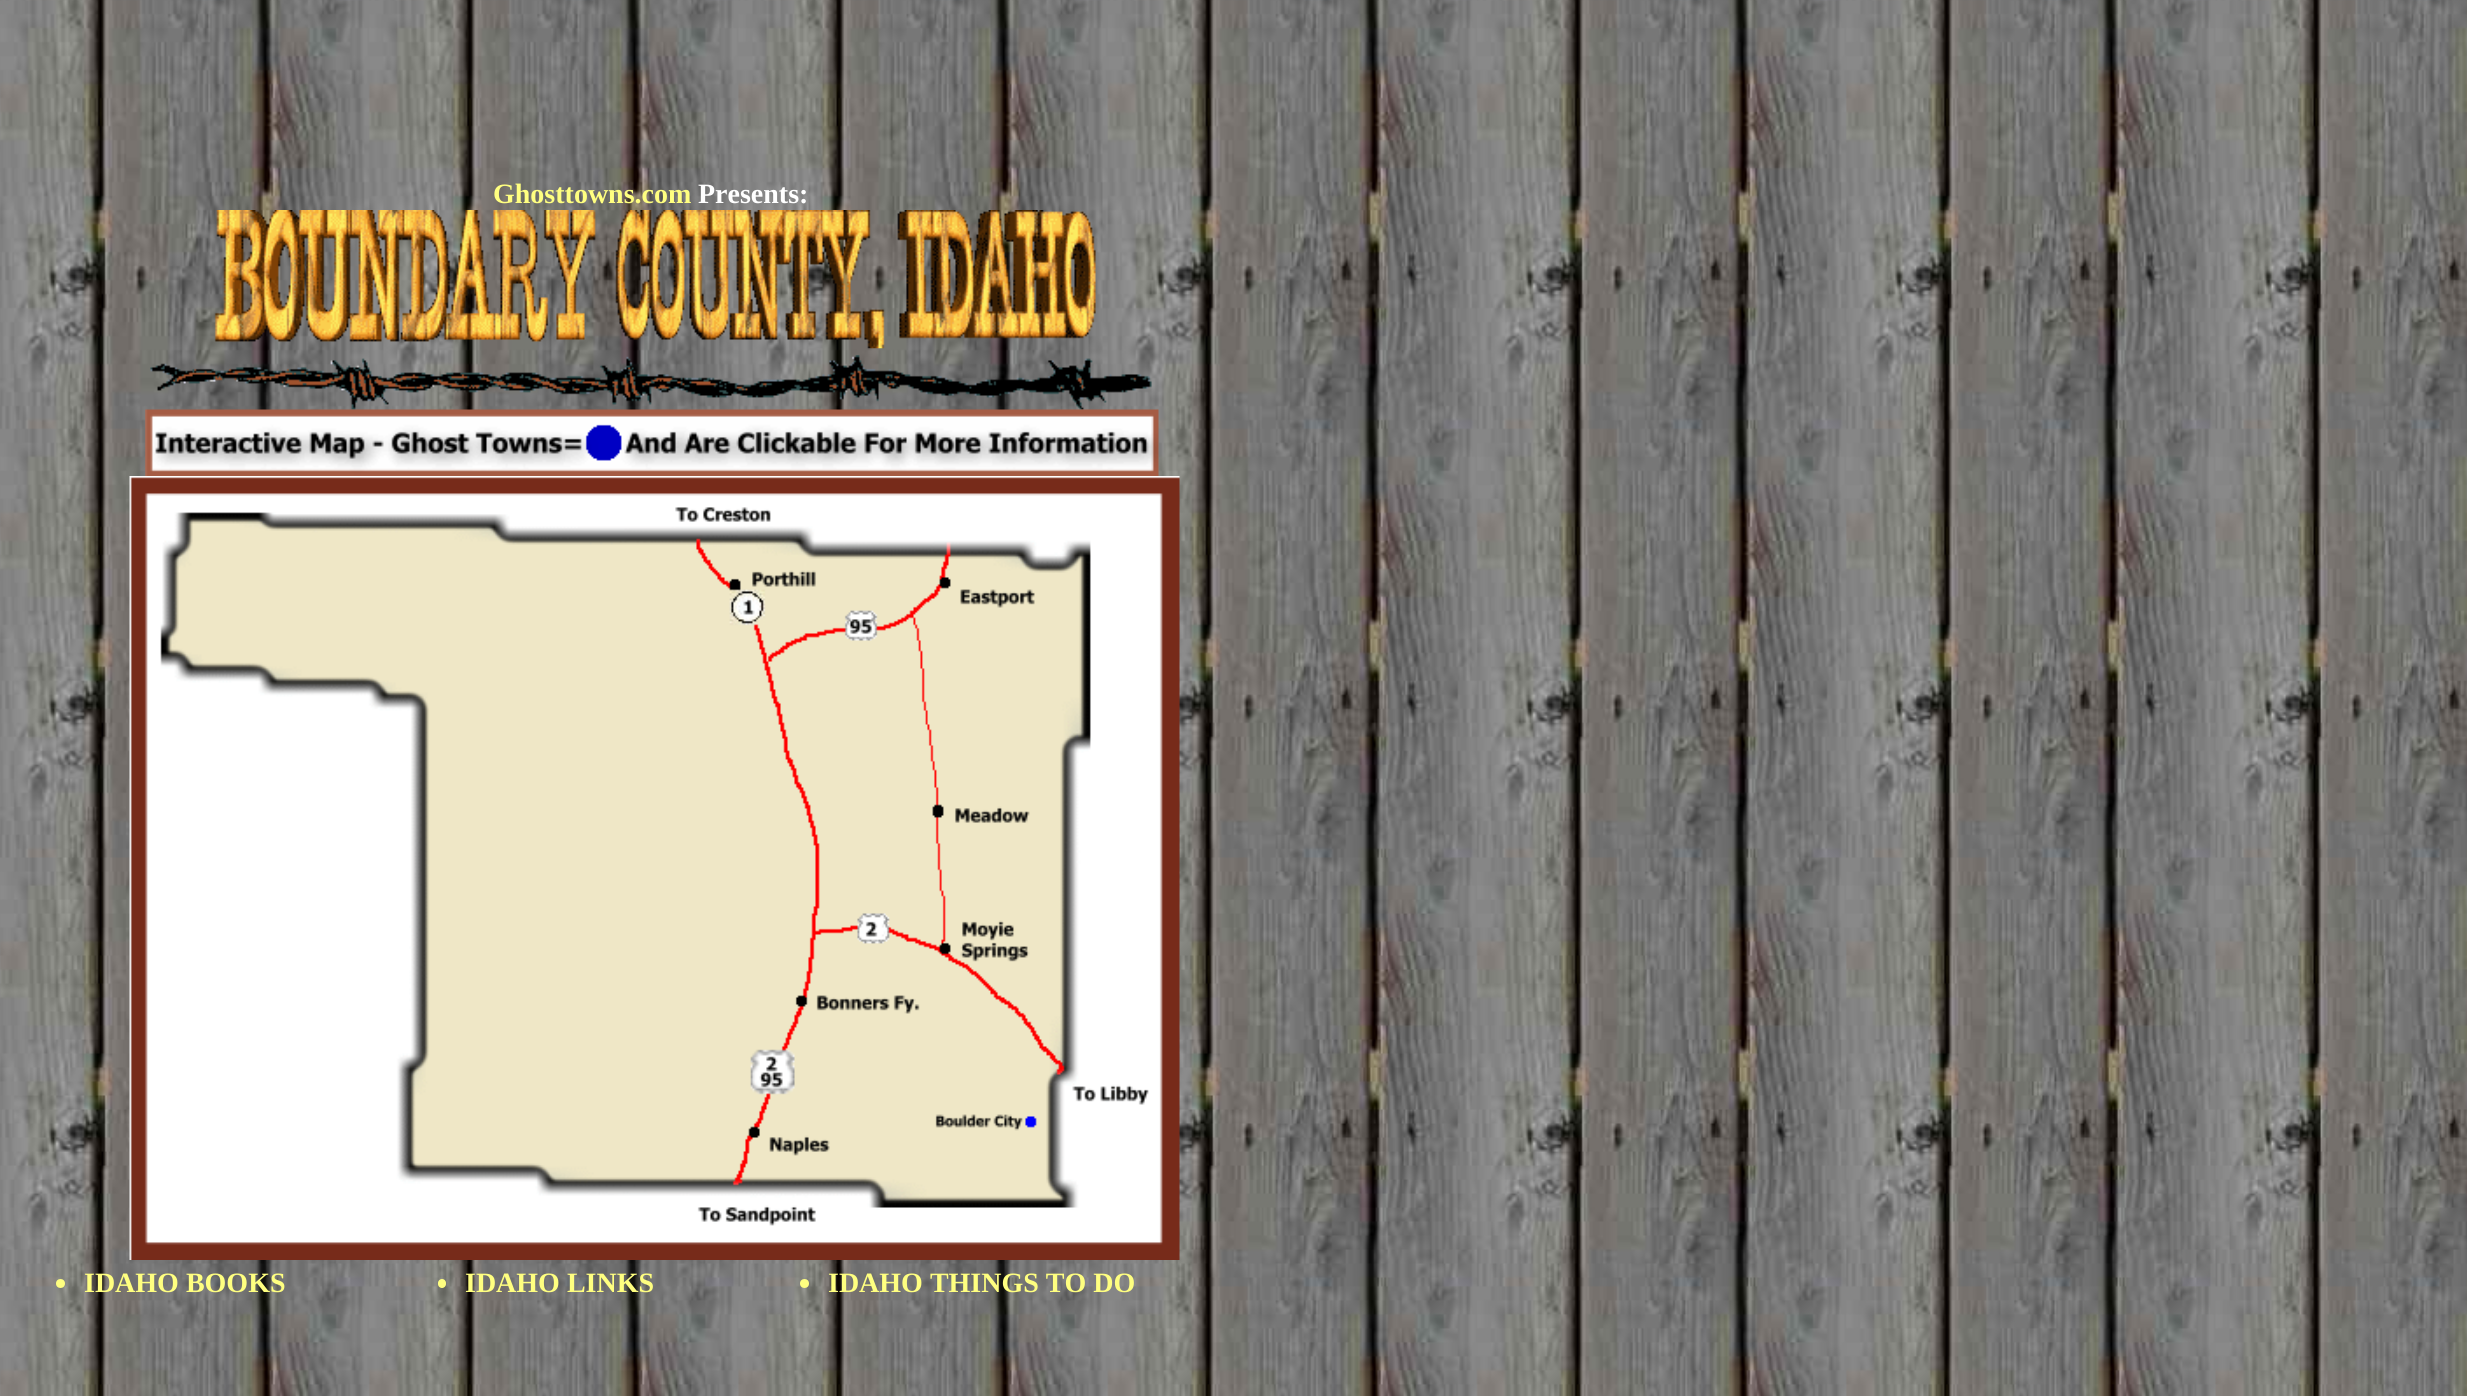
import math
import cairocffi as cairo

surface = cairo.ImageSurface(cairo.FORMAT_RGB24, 2467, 1396)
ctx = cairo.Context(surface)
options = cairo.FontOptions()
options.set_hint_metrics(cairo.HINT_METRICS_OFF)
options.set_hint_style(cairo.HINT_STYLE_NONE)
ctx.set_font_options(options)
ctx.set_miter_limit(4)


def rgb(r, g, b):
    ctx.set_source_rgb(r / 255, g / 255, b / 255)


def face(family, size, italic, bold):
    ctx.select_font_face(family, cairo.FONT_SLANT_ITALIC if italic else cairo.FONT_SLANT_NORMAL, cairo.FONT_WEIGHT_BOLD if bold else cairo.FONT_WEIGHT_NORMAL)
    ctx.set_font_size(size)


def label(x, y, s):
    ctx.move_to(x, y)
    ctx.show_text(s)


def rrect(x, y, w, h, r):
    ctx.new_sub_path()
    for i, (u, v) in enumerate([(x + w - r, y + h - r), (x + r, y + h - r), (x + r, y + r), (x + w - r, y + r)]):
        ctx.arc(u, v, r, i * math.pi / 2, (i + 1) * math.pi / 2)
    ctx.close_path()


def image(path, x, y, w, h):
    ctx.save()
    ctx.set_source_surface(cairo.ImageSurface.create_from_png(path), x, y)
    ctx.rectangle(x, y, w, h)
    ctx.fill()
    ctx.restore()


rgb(255, 255, 255)
ctx.paint()
image('image0.png', 0, 0, 2467, 1396)
face('Liberation Serif', 28, 0, 1)
rgb(255, 255, 128)
label(493, 203, 'Ghosttowns.com')
rgb(255, 255, 255)
label(698, 203, 'Presents:')
image('image1.png', 214, 210, 882, 139)
image('image2.png', 150, 355, 1002, 55)
image('image3.png', 145, 409, 1014, 67)
image('image4.png', 129, 476, 1051, 784)
rgb(255, 255, 128)
ctx.arc(60.5, 1283.5, 4.5, 0, 2 * math.pi)
ctx.fill()
label(84, 1292, 'IDAHO BOOKS')
rrect(438, 1279, 8, 9, 4)
ctx.fill()
label(465, 1292, 'IDAHO LINKS')
ctx.new_path()
ctx.arc(804.5, 1283.5, 4.5, 0, 2 * math.pi)
ctx.fill()
label(828, 1292, 'IDAHO THINGS TO DO')
surface.write_to_png('render.png')
